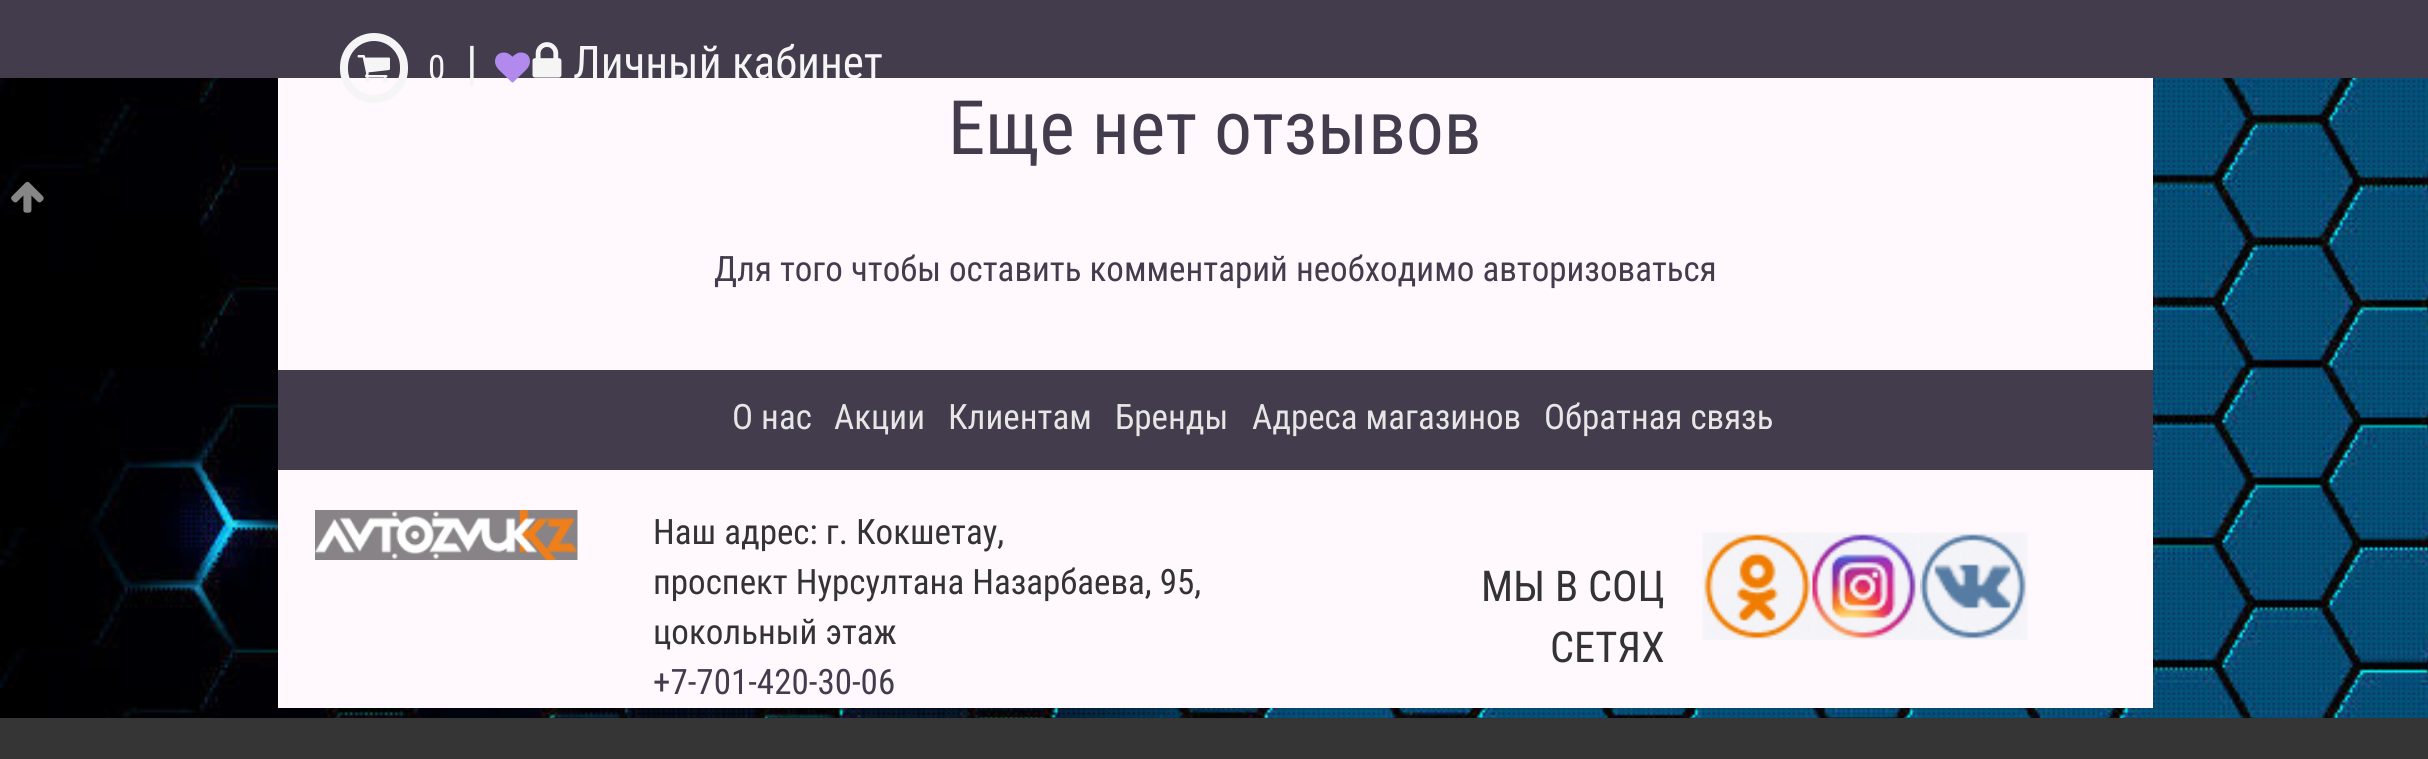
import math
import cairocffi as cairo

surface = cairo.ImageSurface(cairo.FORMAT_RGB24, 2428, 759)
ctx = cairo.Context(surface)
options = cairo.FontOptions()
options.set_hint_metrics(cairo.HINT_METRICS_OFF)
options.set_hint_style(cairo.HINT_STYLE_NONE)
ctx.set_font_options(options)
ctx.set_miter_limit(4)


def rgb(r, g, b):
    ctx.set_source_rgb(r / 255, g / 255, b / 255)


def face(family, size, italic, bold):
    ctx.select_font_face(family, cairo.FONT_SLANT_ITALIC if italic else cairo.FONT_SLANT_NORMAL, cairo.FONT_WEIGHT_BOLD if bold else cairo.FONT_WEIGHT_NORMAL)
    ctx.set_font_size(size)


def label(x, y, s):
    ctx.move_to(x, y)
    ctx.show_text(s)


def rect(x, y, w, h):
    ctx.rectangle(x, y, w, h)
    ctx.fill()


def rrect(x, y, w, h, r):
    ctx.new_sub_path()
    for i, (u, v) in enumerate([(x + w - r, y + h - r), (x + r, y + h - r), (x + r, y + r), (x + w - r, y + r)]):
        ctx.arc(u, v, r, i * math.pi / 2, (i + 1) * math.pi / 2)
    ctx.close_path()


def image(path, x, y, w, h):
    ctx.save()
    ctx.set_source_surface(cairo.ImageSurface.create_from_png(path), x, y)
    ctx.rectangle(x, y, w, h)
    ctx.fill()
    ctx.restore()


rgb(255, 255, 255)
ctx.paint()
image('image0.png', 0, 78, 2428, 640)
rgb(66, 60, 77)
rect(0, 0, 2428, 78)
rgb(255, 248, 253)
rect(278, 78, 1875, 292)
rrect(344, 37, 60, 62, 30)
rgb(245, 245, 245)
ctx.set_line_width(8)
ctx.stroke()
image('image1.png', 357, 55, 33, 28)
face('Roboto Condensed', 35, 0, 0)
label(428, 80, '0')
face('Roboto Condensed', 48, 0, 0)
label(466, 80, '|')
image('image2.png', 495, 52, 35, 31)
image('image3.png', 532, 42, 30, 36)
face('Roboto Condensed', 45, 0, 0)
label(573, 78, 'Личный кабинет')
image('image4.png', 11, 181, 33, 32)
face('Roboto Condensed', 75, 0, 0)
rgb(66, 60, 77)
label(948, 154, 'Еще нет отзывов')
face('Roboto Condensed', 35, 0, 0)
label(714, 281, 'Для того чтобы оставить комментарий необходимо авторизоваться')
rect(278, 370, 1875, 100)
rgb(230, 230, 230)
label(732, 429, 'О нас')
label(834, 429, 'Акции')
label(948, 429, 'Клиентам')
label(1115, 429, 'Бренды')
label(1252, 429, 'Адреса магазинов')
label(1544, 429, 'Обратная связь')
rgb(255, 248, 253)
rect(278, 470, 1875, 238)
image('image5.png', 315, 510, 263, 50)
rgb(51, 51, 51)
label(653, 544, 'Наш адрес: г. Кокшетау,')
label(653, 594, 'проспект Нурсултана Назарбаева, 95,')
label(653, 644, 'цокольный этаж')
rgb(66, 60, 77)
label(653, 694, '+7-701-420-30-06')
face('Roboto Condensed', 42.5, 0, 0)
rgb(51, 51, 51)
label(1481, 601, 'МЫ В СОЦ')
label(1550, 662, 'СЕТЯХ')
image('image6.png', 1702, 532, 111, 108)
image('image7.png', 1812, 532, 108, 108)
image('image8.png', 1920, 532, 108, 108)
rgb(53, 53, 53)
rect(0, 718, 2428, 41)
surface.write_to_png('render.png')
